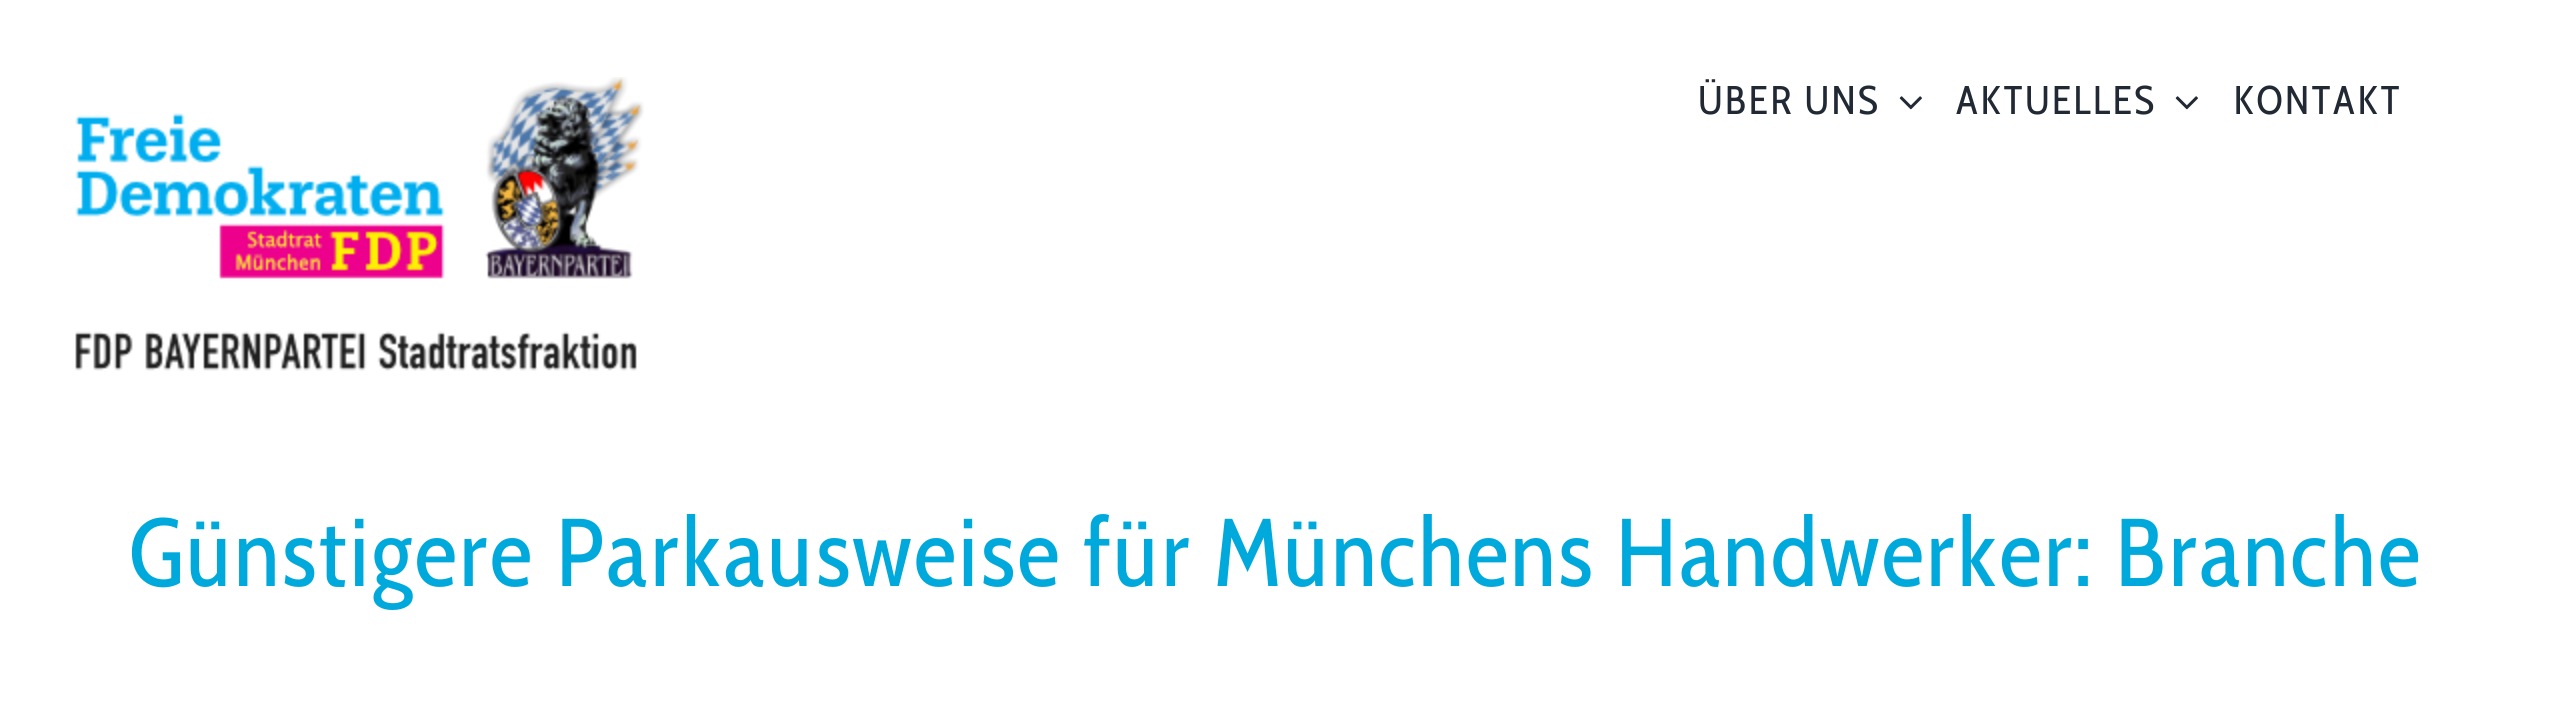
import math
import cairocffi as cairo

surface = cairo.ImageSurface(cairo.FORMAT_RGB24, 2551, 701)
ctx = cairo.Context(surface)
options = cairo.FontOptions()
options.set_hint_metrics(cairo.HINT_METRICS_OFF)
options.set_hint_style(cairo.HINT_STYLE_NONE)
ctx.set_font_options(options)
ctx.set_miter_limit(4)


def rgb(r, g, b):
    ctx.set_source_rgb(r / 255, g / 255, b / 255)


def face(family, size, italic, bold):
    ctx.select_font_face(family, cairo.FONT_SLANT_ITALIC if italic else cairo.FONT_SLANT_NORMAL, cairo.FONT_WEIGHT_BOLD if bold else cairo.FONT_WEIGHT_NORMAL)
    ctx.set_font_size(size)


def tracked(x, y, s, letter, word):
    ctx.move_to(x, y)
    for ch in s:
        ctx.show_text(ch)
        ctx.rel_move_to(letter + word * (ch == ' '), 0)


def image(path, x, y, w, h):
    ctx.save()
    ctx.set_source_surface(cairo.ImageSurface.create_from_png(path), x, y)
    ctx.rectangle(x, y, w, h)
    ctx.fill()
    ctx.restore()


rgb(255, 255, 255)
ctx.paint()
image('image0.png', 75, 77, 569, 294)
face('Cabin Condensed', 40, 0, 0)
rgb(33, 41, 52)
tracked(1698, 114, 'ÜBER UNS', 2.4, 0)
image('image1.png', 1899, 96, 23, 14)
tracked(1956, 114, 'AKTUELLES', 2.4, 0)
image('image1.png', 2175, 96, 23, 14)
tracked(2233, 114, 'KONTAKT', 2.4, 0)
face('Cabin Condensed', 96, 0, 0)
rgb(0, 169, 220)
tracked(129, 586, 'Günstigere Parkausweise für Münchens Handwerker: Branche', 2.4, 0)
surface.write_to_png('render.png')
